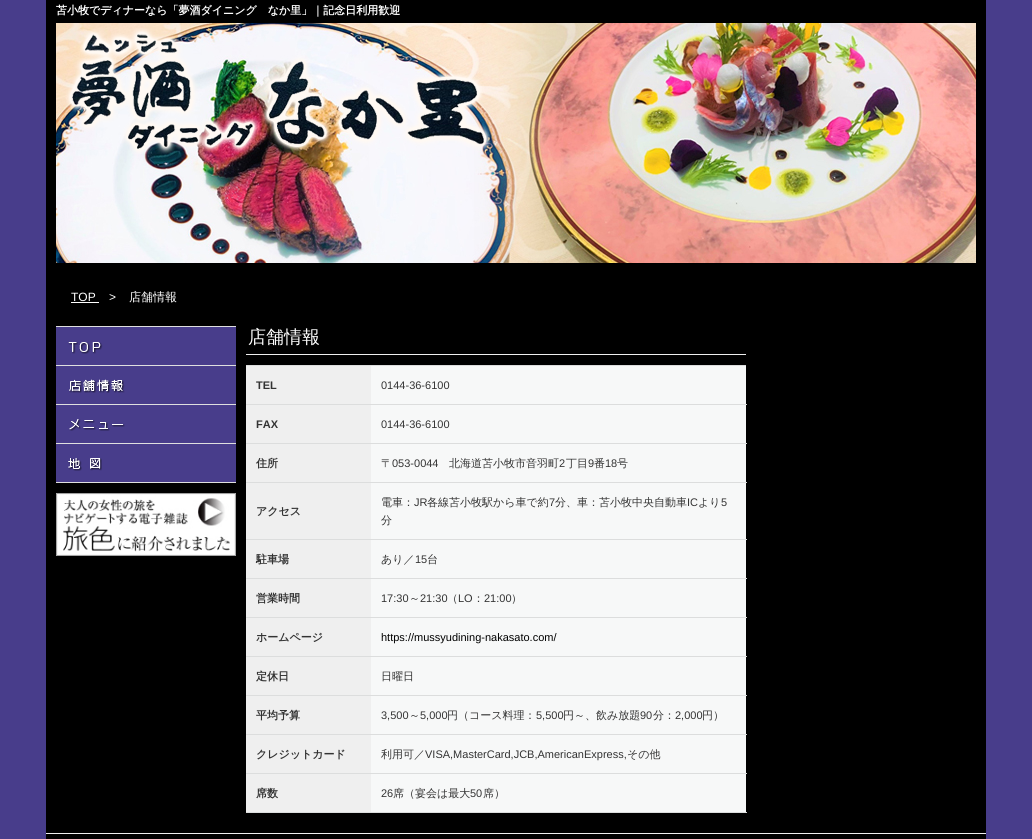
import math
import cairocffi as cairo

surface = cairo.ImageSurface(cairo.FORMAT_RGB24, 1032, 839)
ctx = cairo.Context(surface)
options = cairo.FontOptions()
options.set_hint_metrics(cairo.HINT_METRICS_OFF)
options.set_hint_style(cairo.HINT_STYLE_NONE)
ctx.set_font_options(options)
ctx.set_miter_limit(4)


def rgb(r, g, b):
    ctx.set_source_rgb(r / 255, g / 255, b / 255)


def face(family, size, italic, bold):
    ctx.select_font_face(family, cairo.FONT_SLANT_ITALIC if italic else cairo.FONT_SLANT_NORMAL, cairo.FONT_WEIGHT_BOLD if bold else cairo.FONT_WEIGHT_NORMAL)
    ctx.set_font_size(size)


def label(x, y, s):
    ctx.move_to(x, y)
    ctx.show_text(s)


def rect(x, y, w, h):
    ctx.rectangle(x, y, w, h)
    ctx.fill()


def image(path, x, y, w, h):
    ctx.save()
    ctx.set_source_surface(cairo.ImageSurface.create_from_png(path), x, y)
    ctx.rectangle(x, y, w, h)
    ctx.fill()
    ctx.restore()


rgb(72, 61, 139)
ctx.paint()
rgb(0, 0, 0)
rect(46, 0, 940, 839)
face('WenQuanYi Zen Hei', 11, 0, 1)
rgb(255, 255, 255)
label(56, 14, '苫小牧でディナーなら「夢酒ダイニング　なか里」｜記念日利用歓迎')
image('image0.png', 56, 23, 920, 240)
image('image1.png', 66, 28, 424, 126)
face('Liberation Sans', 12, 0, 0)
label(71, 301, 'TOP')
rect(71, 302, 28, 1)
label(109, 301, '>')
face('WenQuanYi Zen Hei Medium', 12, 0, 0)
label(129, 301, '店舗情報')
rgb(223, 223, 223)
rect(56, 326, 180, 1)
rgb(72, 61, 139)
rect(56, 327, 180, 38)
rgb(223, 223, 223)
rect(56, 365, 180, 1)
image('image2.png', 68, 342, 35, 12)
rgb(72, 61, 139)
rect(56, 366, 180, 38)
rgb(223, 223, 223)
rect(56, 404, 180, 1)
image('image3.png', 69, 379, 56, 14)
rgb(72, 61, 139)
rect(56, 405, 180, 38)
rgb(223, 223, 223)
rect(56, 443, 180, 1)
image('image4.png', 69, 419, 56, 12)
rgb(72, 61, 139)
rect(56, 444, 180, 38)
rgb(223, 223, 223)
rect(56, 482, 180, 1)
image('image5.png', 68, 458, 34, 13)
image('image6.png', 56, 493, 180, 63)
rgb(238, 238, 238)
rect(246, 354, 500, 1)
face('WenQuanYi Zen Hei Medium', 18, 0, 0)
rgb(255, 255, 255)
label(248, 343, '店舗情報')
rgb(220, 221, 221)
rect(246, 365, 500, 1)
rgb(239, 239, 239)
rect(246, 366, 125, 38)
face('Liberation Sans', 11, 0, 1)
rgb(51, 51, 51)
label(256, 389, 'TEL')
rgb(247, 248, 248)
rect(371, 366, 375, 38)
rgb(220, 221, 221)
rect(246, 404, 501, 1)
face('Liberation Sans', 11, 0, 0)
rgb(51, 51, 51)
label(381, 389, '0144-36-6100')
rgb(239, 239, 239)
rect(246, 405, 125, 38)
face('Liberation Sans', 11, 0, 1)
rgb(51, 51, 51)
label(256, 428, 'FAX')
rgb(247, 248, 248)
rect(371, 405, 375, 38)
rgb(220, 221, 221)
rect(246, 443, 501, 1)
face('Liberation Sans', 11, 0, 0)
rgb(51, 51, 51)
label(381, 428, '0144-36-6100')
rgb(239, 239, 239)
rect(246, 444, 125, 38)
face('WenQuanYi Zen Hei', 11, 0, 1)
rgb(51, 51, 51)
label(256, 467, '住所')
rgb(247, 248, 248)
rect(371, 444, 375, 38)
rgb(220, 221, 221)
rect(246, 482, 501, 1)
face('WenQuanYi Zen Hei Medium', 11, 0, 0)
rgb(51, 51, 51)
label(381, 467, '〒')
face('Liberation Sans', 11, 0, 0)
label(392, 467, '053-0044')
face('WenQuanYi Zen Hei Medium', 11, 0, 0)
label(449, 467, '北海道苫小牧市音羽町')
face('Liberation Sans', 11, 0, 0)
label(559, 467, '2')
face('WenQuanYi Zen Hei Medium', 11, 0, 0)
label(566, 467, '丁目')
face('Liberation Sans', 11, 0, 0)
label(588, 467, '9')
face('WenQuanYi Zen Hei Medium', 11, 0, 0)
label(594, 467, '番')
face('Liberation Sans', 11, 0, 0)
label(605, 467, '18')
face('WenQuanYi Zen Hei Medium', 11, 0, 0)
label(617, 467, '号')
rgb(239, 239, 239)
rect(246, 483, 125, 56)
face('WenQuanYi Zen Hei', 11, 0, 1)
rgb(51, 51, 51)
label(256, 515, 'アクセス')
rgb(247, 248, 248)
rect(371, 483, 375, 56)
rgb(220, 221, 221)
rect(246, 539, 501, 1)
face('WenQuanYi Zen Hei Medium', 11, 0, 0)
rgb(51, 51, 51)
label(381, 506, '電車：')
face('Liberation Sans', 11, 0, 0)
label(414, 506, 'JR')
face('WenQuanYi Zen Hei Medium', 11, 0, 0)
label(427, 506, '各線苫小牧駅から車で約')
face('Liberation Sans', 11, 0, 0)
label(549, 506, '7')
face('WenQuanYi Zen Hei Medium', 11, 0, 0)
label(555, 506, '分、車：苫小牧中央自動車')
face('Liberation Sans', 11, 0, 0)
label(687, 506, 'IC')
face('WenQuanYi Zen Hei Medium', 11, 0, 0)
label(698, 506, 'より')
face('Liberation Sans', 11, 0, 0)
label(721, 506, '5')
face('WenQuanYi Zen Hei Medium', 11, 0, 0)
label(381, 524, '分')
rgb(239, 239, 239)
rect(246, 540, 125, 38)
face('WenQuanYi Zen Hei', 11, 0, 1)
rgb(51, 51, 51)
label(256, 563, '駐車場')
rgb(247, 248, 248)
rect(371, 540, 375, 38)
rgb(220, 221, 221)
rect(246, 578, 501, 1)
face('WenQuanYi Zen Hei Medium', 11, 0, 0)
rgb(51, 51, 51)
label(381, 563, 'あり／')
face('Liberation Sans', 11, 0, 0)
label(415, 563, '15')
face('WenQuanYi Zen Hei Medium', 11, 0, 0)
label(427, 563, '台')
rgb(239, 239, 239)
rect(246, 579, 125, 38)
face('WenQuanYi Zen Hei', 11, 0, 1)
rgb(51, 51, 51)
label(256, 602, '営業時間')
rgb(247, 248, 248)
rect(371, 579, 375, 38)
rgb(220, 221, 221)
rect(246, 617, 501, 1)
face('Liberation Sans', 11, 0, 0)
rgb(51, 51, 51)
label(381, 602, '17:30')
face('WenQuanYi Zen Hei Medium', 11, 0, 0)
label(409, 602, '～')
face('Liberation Sans', 11, 0, 0)
label(420, 602, '21:30')
face('WenQuanYi Zen Hei Medium', 11, 0, 0)
label(447, 602, '（')
face('Liberation Sans', 11, 0, 0)
label(458, 602, 'LO')
face('WenQuanYi Zen Hei Medium', 11, 0, 0)
label(473, 602, '：')
face('Liberation Sans', 11, 0, 0)
label(484, 602, '21:00')
face('WenQuanYi Zen Hei Medium', 11, 0, 0)
label(511, 602, '）')
rgb(239, 239, 239)
rect(246, 618, 125, 38)
face('WenQuanYi Zen Hei', 11, 0, 1)
rgb(51, 51, 51)
label(256, 641, 'ホームページ')
rgb(247, 248, 248)
rect(371, 618, 375, 38)
rgb(220, 221, 221)
rect(246, 656, 501, 1)
face('Liberation Sans', 11, 0, 0)
rgb(0, 0, 0)
label(381, 641, 'https://mussyudining-nakasato.com/')
rgb(239, 239, 239)
rect(246, 657, 125, 38)
face('WenQuanYi Zen Hei', 11, 0, 1)
rgb(51, 51, 51)
label(256, 680, '定休日')
rgb(247, 248, 248)
rect(371, 657, 375, 38)
rgb(220, 221, 221)
rect(246, 695, 501, 1)
face('WenQuanYi Zen Hei Medium', 11, 0, 0)
rgb(51, 51, 51)
label(381, 680, '日曜日')
rgb(239, 239, 239)
rect(246, 696, 125, 38)
face('WenQuanYi Zen Hei', 11, 0, 1)
rgb(51, 51, 51)
label(256, 719, '平均予算')
rgb(247, 248, 248)
rect(371, 696, 375, 38)
rgb(220, 221, 221)
rect(246, 734, 501, 1)
face('Liberation Sans', 11, 0, 0)
rgb(51, 51, 51)
label(381, 719, '3,500')
face('WenQuanYi Zen Hei Medium', 11, 0, 0)
label(409, 719, '～')
face('Liberation Sans', 11, 0, 0)
label(420, 719, '5,000')
face('WenQuanYi Zen Hei Medium', 11, 0, 0)
label(447, 719, '円（コース料理：')
face('Liberation Sans', 11, 0, 0)
label(536, 719, '5,500')
face('WenQuanYi Zen Hei Medium', 11, 0, 0)
label(563, 719, '円～、飲み放題')
face('Liberation Sans', 11, 0, 0)
label(640, 719, '90')
face('WenQuanYi Zen Hei Medium', 11, 0, 0)
label(653, 719, '分：')
face('Liberation Sans', 11, 0, 0)
label(675, 719, '2,000')
face('WenQuanYi Zen Hei Medium', 11, 0, 0)
label(702, 719, '円）')
rgb(239, 239, 239)
rect(246, 735, 125, 38)
face('WenQuanYi Zen Hei', 11, 0, 1)
rgb(51, 51, 51)
label(256, 758, 'クレジットカード')
rgb(247, 248, 248)
rect(371, 735, 375, 38)
rgb(220, 221, 221)
rect(246, 773, 501, 1)
face('WenQuanYi Zen Hei Medium', 11, 0, 0)
rgb(51, 51, 51)
label(381, 758, '利用可／')
face('Liberation Sans', 11, 0, 0)
label(425, 758, 'VISA,MasterCard,JCB,AmericanExpress,')
face('WenQuanYi Zen Hei Medium', 11, 0, 0)
label(627, 758, 'その他')
rgb(239, 239, 239)
rect(246, 774, 125, 38)
face('WenQuanYi Zen Hei', 11, 0, 1)
rgb(51, 51, 51)
label(256, 797, '席数')
rgb(247, 248, 248)
rect(371, 774, 375, 38)
rgb(220, 221, 221)
rect(246, 812, 501, 1)
face('Liberation Sans', 11, 0, 0)
rgb(51, 51, 51)
label(381, 797, '26')
face('WenQuanYi Zen Hei Medium', 11, 0, 0)
label(393, 797, '席（宴会は最大')
face('Liberation Sans', 11, 0, 0)
label(470, 797, '50')
face('WenQuanYi Zen Hei Medium', 11, 0, 0)
label(483, 797, '席）')
rgb(238, 238, 238)
rect(46, 833, 940, 1)
surface.write_to_png('render.png')
